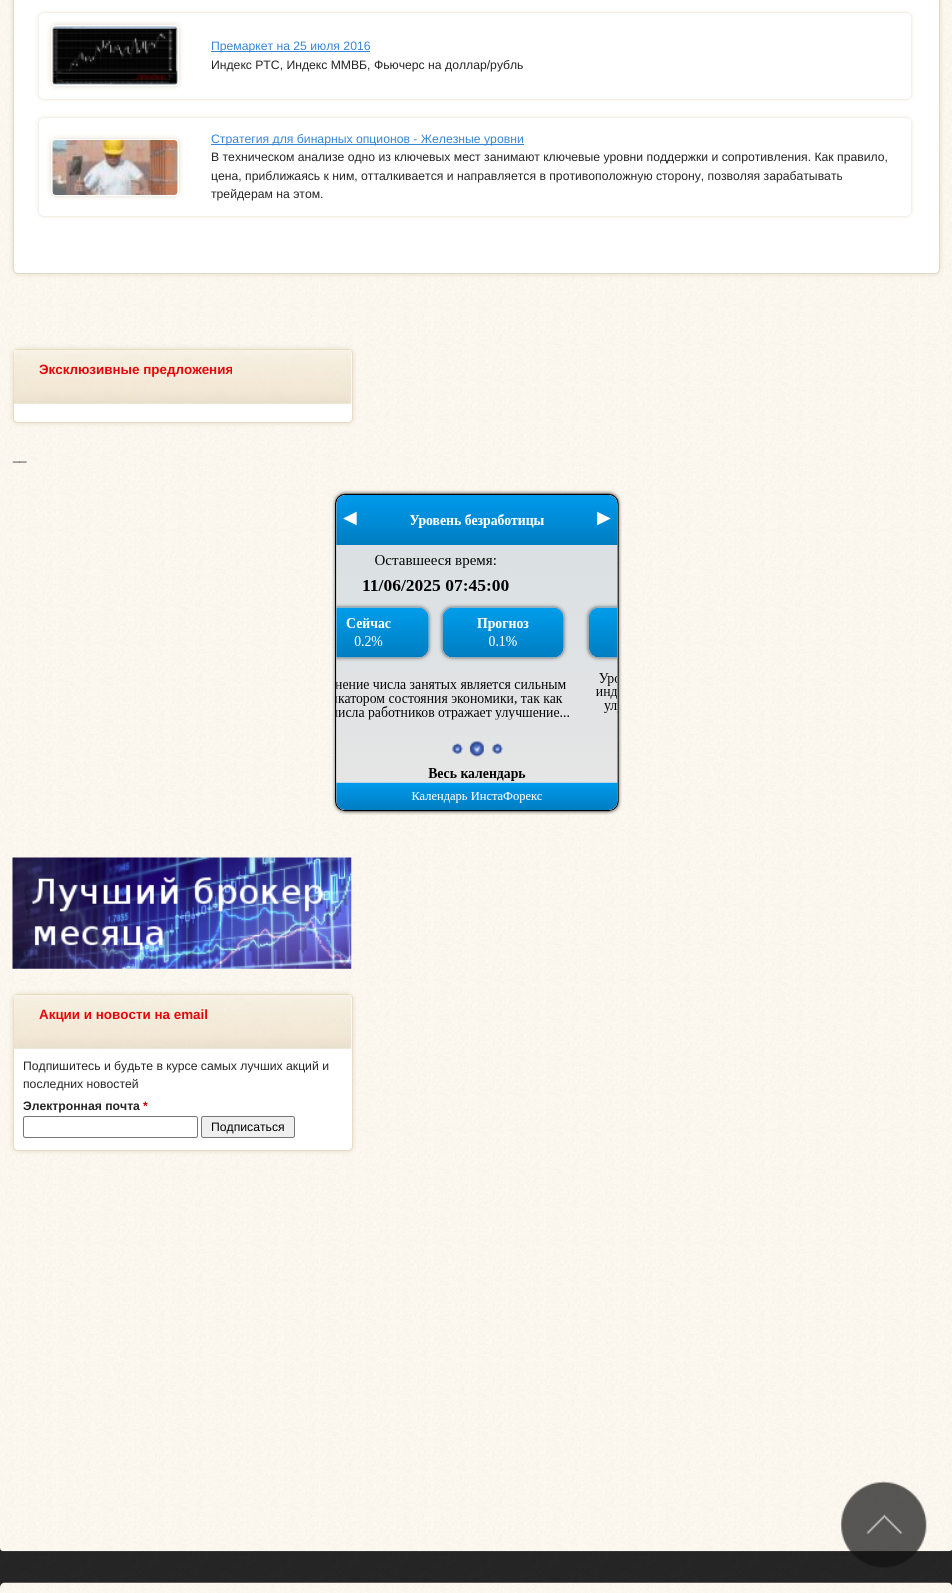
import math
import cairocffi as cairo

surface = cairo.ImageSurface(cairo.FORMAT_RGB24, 952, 1593)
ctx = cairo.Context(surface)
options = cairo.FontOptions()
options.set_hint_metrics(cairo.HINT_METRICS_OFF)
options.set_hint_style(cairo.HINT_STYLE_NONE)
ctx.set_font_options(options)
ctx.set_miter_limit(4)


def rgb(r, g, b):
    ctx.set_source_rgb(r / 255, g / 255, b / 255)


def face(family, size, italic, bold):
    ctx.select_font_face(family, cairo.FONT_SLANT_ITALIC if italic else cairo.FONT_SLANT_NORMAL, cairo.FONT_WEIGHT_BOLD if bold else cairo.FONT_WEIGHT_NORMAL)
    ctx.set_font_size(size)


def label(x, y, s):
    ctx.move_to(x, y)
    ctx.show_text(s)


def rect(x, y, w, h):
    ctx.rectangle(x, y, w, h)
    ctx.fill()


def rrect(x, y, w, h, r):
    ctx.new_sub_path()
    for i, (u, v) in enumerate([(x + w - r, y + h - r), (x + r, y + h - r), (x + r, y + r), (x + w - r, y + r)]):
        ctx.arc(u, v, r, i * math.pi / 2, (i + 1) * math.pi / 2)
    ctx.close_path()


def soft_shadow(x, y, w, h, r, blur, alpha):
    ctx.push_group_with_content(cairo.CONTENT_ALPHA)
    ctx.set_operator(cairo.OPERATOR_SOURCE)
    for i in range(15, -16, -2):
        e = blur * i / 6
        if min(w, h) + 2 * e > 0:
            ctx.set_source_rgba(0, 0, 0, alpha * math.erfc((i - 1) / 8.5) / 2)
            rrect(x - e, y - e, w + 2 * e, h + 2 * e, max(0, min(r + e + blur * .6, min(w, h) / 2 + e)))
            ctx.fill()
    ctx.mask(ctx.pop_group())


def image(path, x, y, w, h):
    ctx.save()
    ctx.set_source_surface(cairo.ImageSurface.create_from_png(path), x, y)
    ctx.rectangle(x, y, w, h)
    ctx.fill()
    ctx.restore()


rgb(255, 255, 255)
ctx.paint()
image('image0.png', 0, 1548, 952, 40)
image('image1.png', 0, 0, 952, 1552)
rgb(226, 218, 200)
soft_shadow(13, -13, 927, 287, 5, 2.5, 1)
rgb(255, 255, 255)
rrect(13.5, -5.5, 926, 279, 4.5)
ctx.fill_preserve()
rgb(223, 219, 203)
ctx.set_line_width(1)
ctx.stroke()
rgb(226, 218, 200)
soft_shadow(39, 13, 872, 86, 5, 2, 1)
rgb(255, 255, 255)
rrect(39, 13, 872, 86, 5)
ctx.fill()
rgb(226, 218, 200)
soft_shadow(51, 25, 128, 61, 5, 2.5, 1)
rrect(51.5, 25.5, 127, 60, 4.5)
rgb(255, 255, 255)
ctx.stroke()
image('image2.png', 52, 26, 126, 59)
rgb(55, 133, 215)
rect(211, 51, 159, 1)
face('Liberation Sans', 12.2, 0, 0)
label(211, 50, 'Премаркет на 25 июля 2016')
rgb(37, 37, 37)
label(211, 69, 'Индекс РТС, Индекс ММВБ, Фьючерс на доллар/рубль')
rgb(226, 218, 200)
soft_shadow(39, 118, 872, 98, 5, 2, 1)
rgb(255, 255, 255)
rrect(39, 118, 872, 98, 5)
ctx.fill()
rgb(226, 218, 200)
soft_shadow(51, 139, 128, 57, 5, 2.5, 1)
rrect(51.5, 139.5, 127, 56, 4.5)
rgb(255, 255, 255)
ctx.stroke()
image('image3.png', 52, 140, 126, 55)
rgb(55, 133, 215)
rect(211, 144, 313, 1)
label(211, 143, 'Стратегия для бинарных опционов - Железные уровни')
rgb(37, 37, 37)
label(211, 161, 'В техническом анализе одно из ключевых мест занимают ключевые уровни поддержки и сопротивления. Как правило,')
label(211, 180, 'цена, приближаясь к ним, отталкивается и направляется в противоположную сторону, позволяя зарабатывать')
label(211, 198, 'трейдерам на этом.')
rgb(226, 218, 200)
soft_shadow(13, 349, 340, 74, 5, 2.5, 1)
rgb(255, 255, 255)
rrect(13.5, 349.5, 339, 73, 4.5)
ctx.fill_preserve()
rgb(233, 220, 196)
ctx.stroke()
image('image4.png', 13, 350, 339, 54)
face('Liberation Sans', 13.4, 0, 1)
rgb(231, 5, 9)
label(39, 374, 'Эксклюзивные предложения')
face('Liberation Sans', 12.2, 0, 0)
rgb(37, 37, 37)
label(13, 460, '__')
image('image5.png', 332, 490, 290, 325)
image('image6.png', 12, 857, 340, 112)
rgb(226, 218, 200)
soft_shadow(13, 994, 340, 157, 5, 2.5, 1)
rgb(255, 255, 255)
rrect(13.5, 994.5, 339, 156, 4.5)
ctx.fill_preserve()
rgb(233, 220, 196)
ctx.stroke()
image('image7.png', 13, 995, 339, 54)
face('Liberation Sans', 13.4, 0, 1)
rgb(231, 5, 9)
label(39, 1019, 'Акции и новости на email')
face('Liberation Sans', 12.2, 0, 0)
rgb(37, 37, 37)
label(23, 1070, 'Подпишитесь и будьте в курсе самых лучших акций и')
label(23, 1088, 'последних новостей')
face('Liberation Sans', 12.2, 0, 1)
label(23, 1110, 'Электронная почта')
rgb(204, 0, 0)
label(143, 1110, '*')
rrect(23.5, 1116.5, 174, 21, 2)
rgb(118, 118, 118)
ctx.stroke()
rgb(239, 239, 239)
rrect(201.5, 1116.5, 93, 21, 2)
ctx.fill_preserve()
rgb(118, 118, 118)
ctx.stroke()
face('Liberation Sans', 12.2, 0, 0)
rgb(0, 0, 0)
label(211, 1131, 'Подписаться')
image('image8.png', 0, 1582, 952, 11)
image('image9.png', 840, 1481, 87, 87)
surface.write_to_png('render.png')
